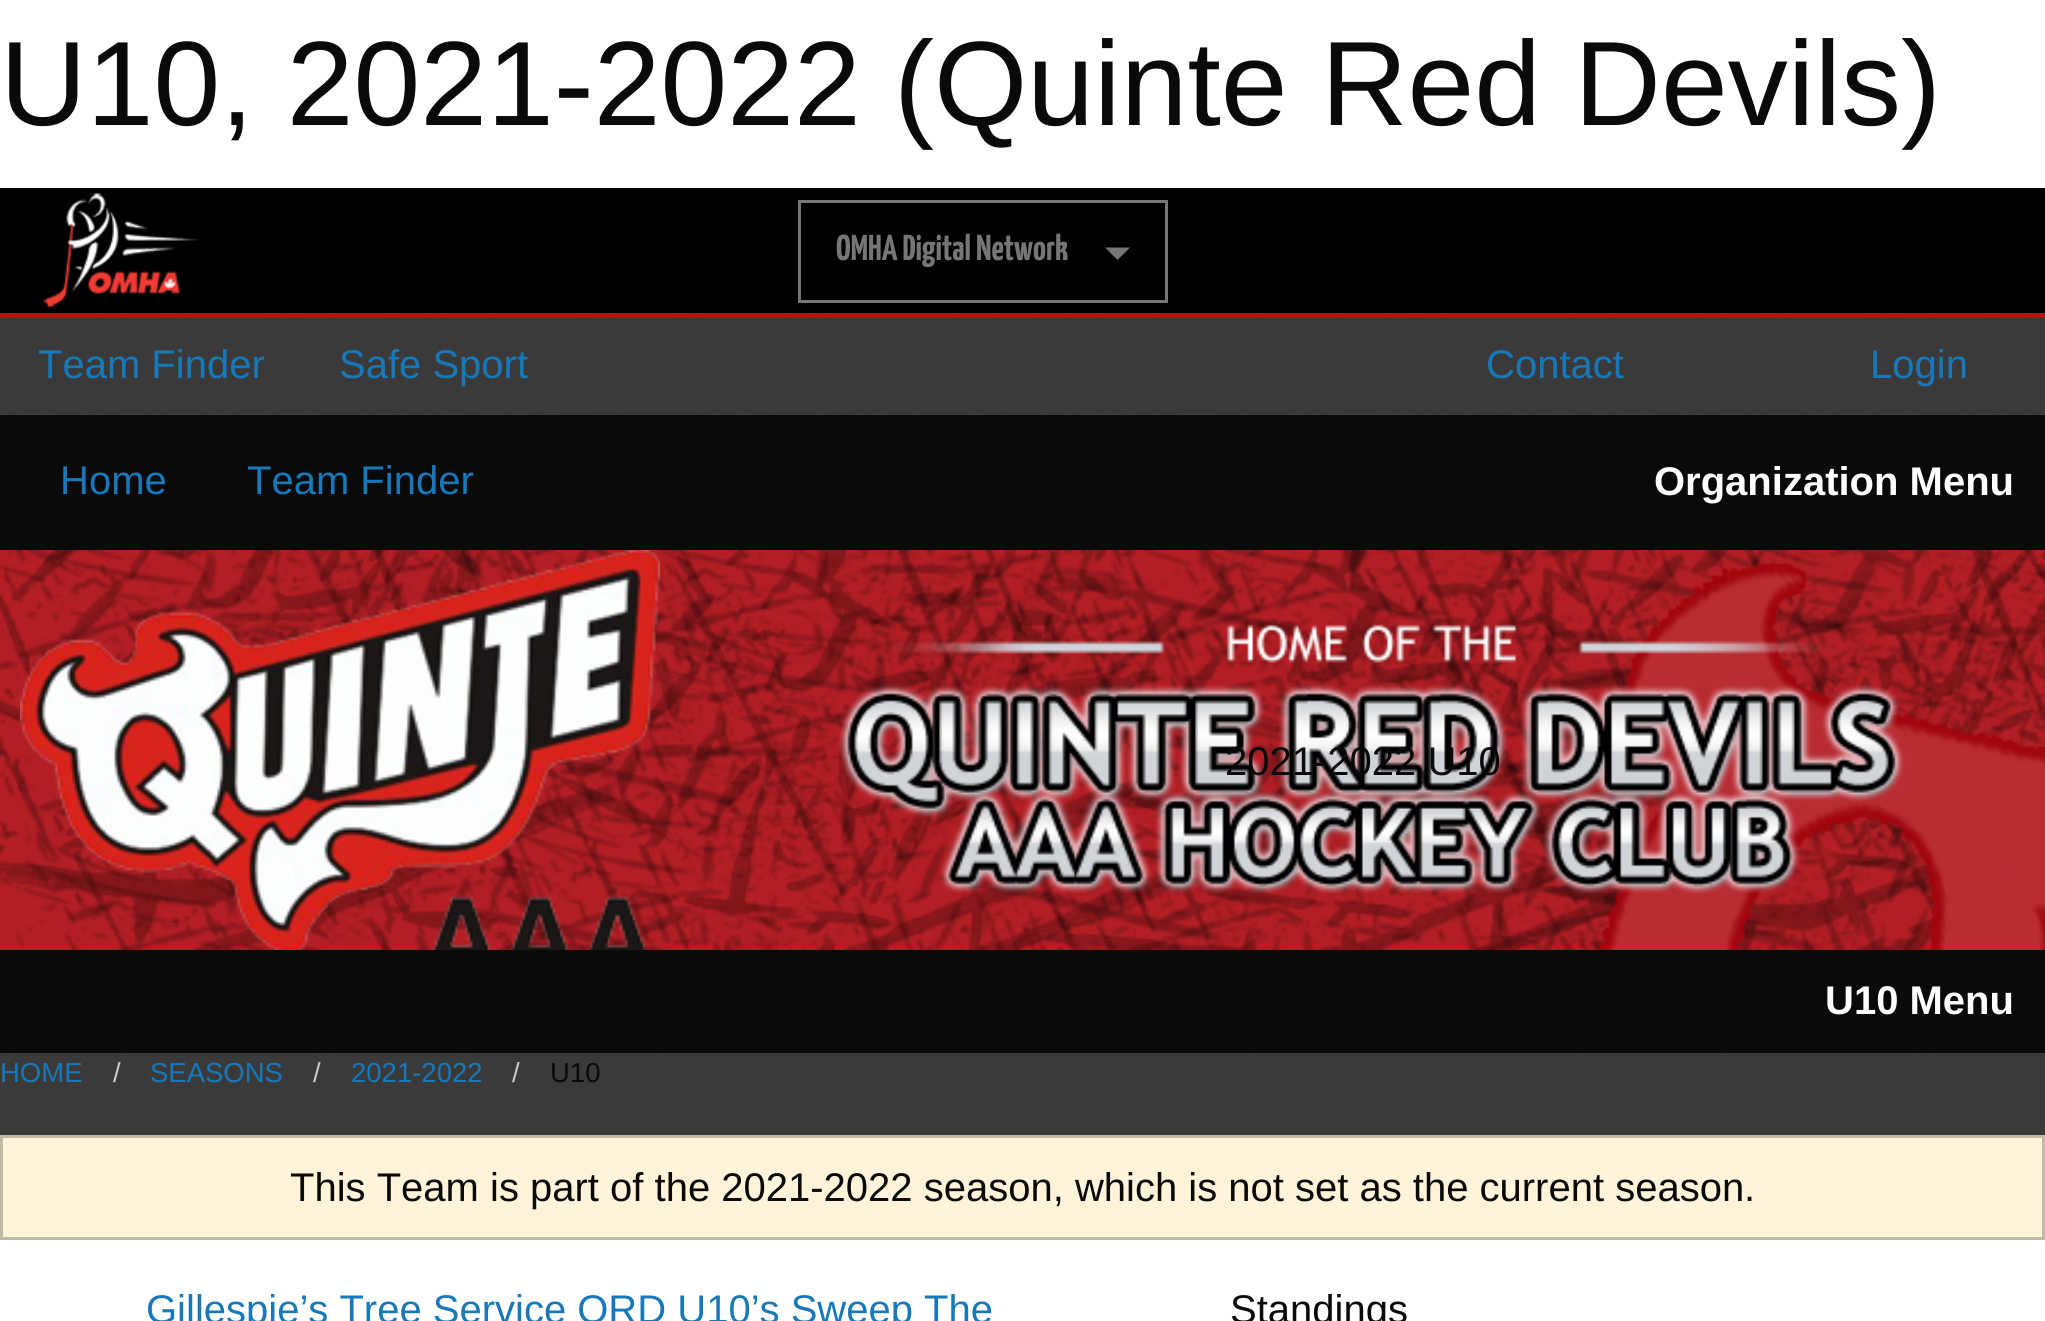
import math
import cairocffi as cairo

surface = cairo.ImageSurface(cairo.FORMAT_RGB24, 2045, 1321)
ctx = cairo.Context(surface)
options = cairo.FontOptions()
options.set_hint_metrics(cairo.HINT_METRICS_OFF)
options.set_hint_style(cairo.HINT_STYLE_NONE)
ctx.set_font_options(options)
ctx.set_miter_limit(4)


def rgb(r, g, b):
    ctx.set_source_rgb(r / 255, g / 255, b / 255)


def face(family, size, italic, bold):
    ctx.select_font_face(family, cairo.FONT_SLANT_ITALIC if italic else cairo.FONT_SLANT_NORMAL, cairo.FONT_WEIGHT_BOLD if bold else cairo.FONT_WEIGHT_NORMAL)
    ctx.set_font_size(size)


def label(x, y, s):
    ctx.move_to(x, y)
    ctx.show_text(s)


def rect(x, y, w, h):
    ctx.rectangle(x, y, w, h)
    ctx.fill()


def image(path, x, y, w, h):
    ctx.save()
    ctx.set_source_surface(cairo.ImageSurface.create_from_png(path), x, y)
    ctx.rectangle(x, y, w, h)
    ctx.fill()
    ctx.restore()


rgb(255, 255, 255)
ctx.paint()
face('Liberation Sans', 120, 0, 0)
rgb(10, 10, 10)
label(0, 125, 'U10, 2021-2022 (Quinte Red Devils)')
rgb(0, 0, 0)
rect(0, 188, 2045, 125)
rgb(198, 12, 12)
rect(0, 313, 2045, 5)
image('image0.png', 43, 193, 156, 114)
ctx.rectangle(799.5, 201.5, 367, 100)
rgb(118, 118, 118)
ctx.set_line_width(3)
ctx.stroke()
face('Yanone Kaffeesatz ExtraLight', 36, 0, 0)
label(836, 260, 'OMHA Digital Network')
ctx.new_path()
ctx.move_to(1105, 247.5)
ctx.line_to(1130, 247.5)
ctx.line_to(1117.5, 260)
ctx.close_path()
ctx.fill()
rgb(51, 51, 51)
rect(0, 318, 2045, 817)
image('image1.png', 0, 318, 2045, 817)
face('Liberation Sans', 40, 0, 0)
rgb(23, 121, 186)
label(38, 378, 'Team Finder')
label(339, 378, 'Safe Sport')
label(1486, 378, 'Contact')
label(1870, 378, 'Login')
rgb(10, 10, 10)
rect(0, 415, 2045, 135)
rgb(23, 121, 186)
label(60, 494, 'Home')
label(247, 494, 'Team Finder')
face('Liberation Sans', 40, 0, 1)
rgb(254, 254, 254)
label(1654, 495, 'Organization Menu')
image('image2.png', 0, 550, 2045, 400)
image('image3.png', 20, 550, 640, 400)
face('Liberation Sans', 40, 0, 0)
rgb(10, 10, 10)
label(1225, 775, '2021-2022 U10')
rect(0, 950, 2045, 103)
face('Liberation Sans', 40, 0, 1)
rgb(254, 254, 254)
label(1825, 1014, 'U10 Menu')
face('Liberation Sans', 27.5, 0, 0)
rgb(23, 121, 186)
label(0, 1082, 'HOME')
rgb(202, 202, 202)
label(113, 1082, '/')
rgb(23, 121, 186)
label(150, 1082, 'SEASONS')
rgb(202, 202, 202)
label(313, 1082, '/')
rgb(23, 121, 186)
label(351, 1082, '2021-2022')
rgb(202, 202, 202)
label(512, 1082, '/')
rgb(10, 10, 10)
label(550, 1082, 'U10')
rgb(255, 243, 217)
ctx.rectangle(1.5, 1136.5, 2042, 102)
ctx.fill_preserve()
rgb(194, 185, 165)
ctx.stroke()
face('Liberation Sans', 40, 0, 0)
rgb(10, 10, 10)
label(290, 1201, 'This Team is part of the 2021-2022 season, which is not set as the current season.')
rgb(23, 121, 186)
label(146, 1323, 'Gillespie’s Tree Service QRD U10’s Sweep The')
rgb(10, 10, 10)
label(1230, 1323, 'Standings')
surface.write_to_png('render.png')
